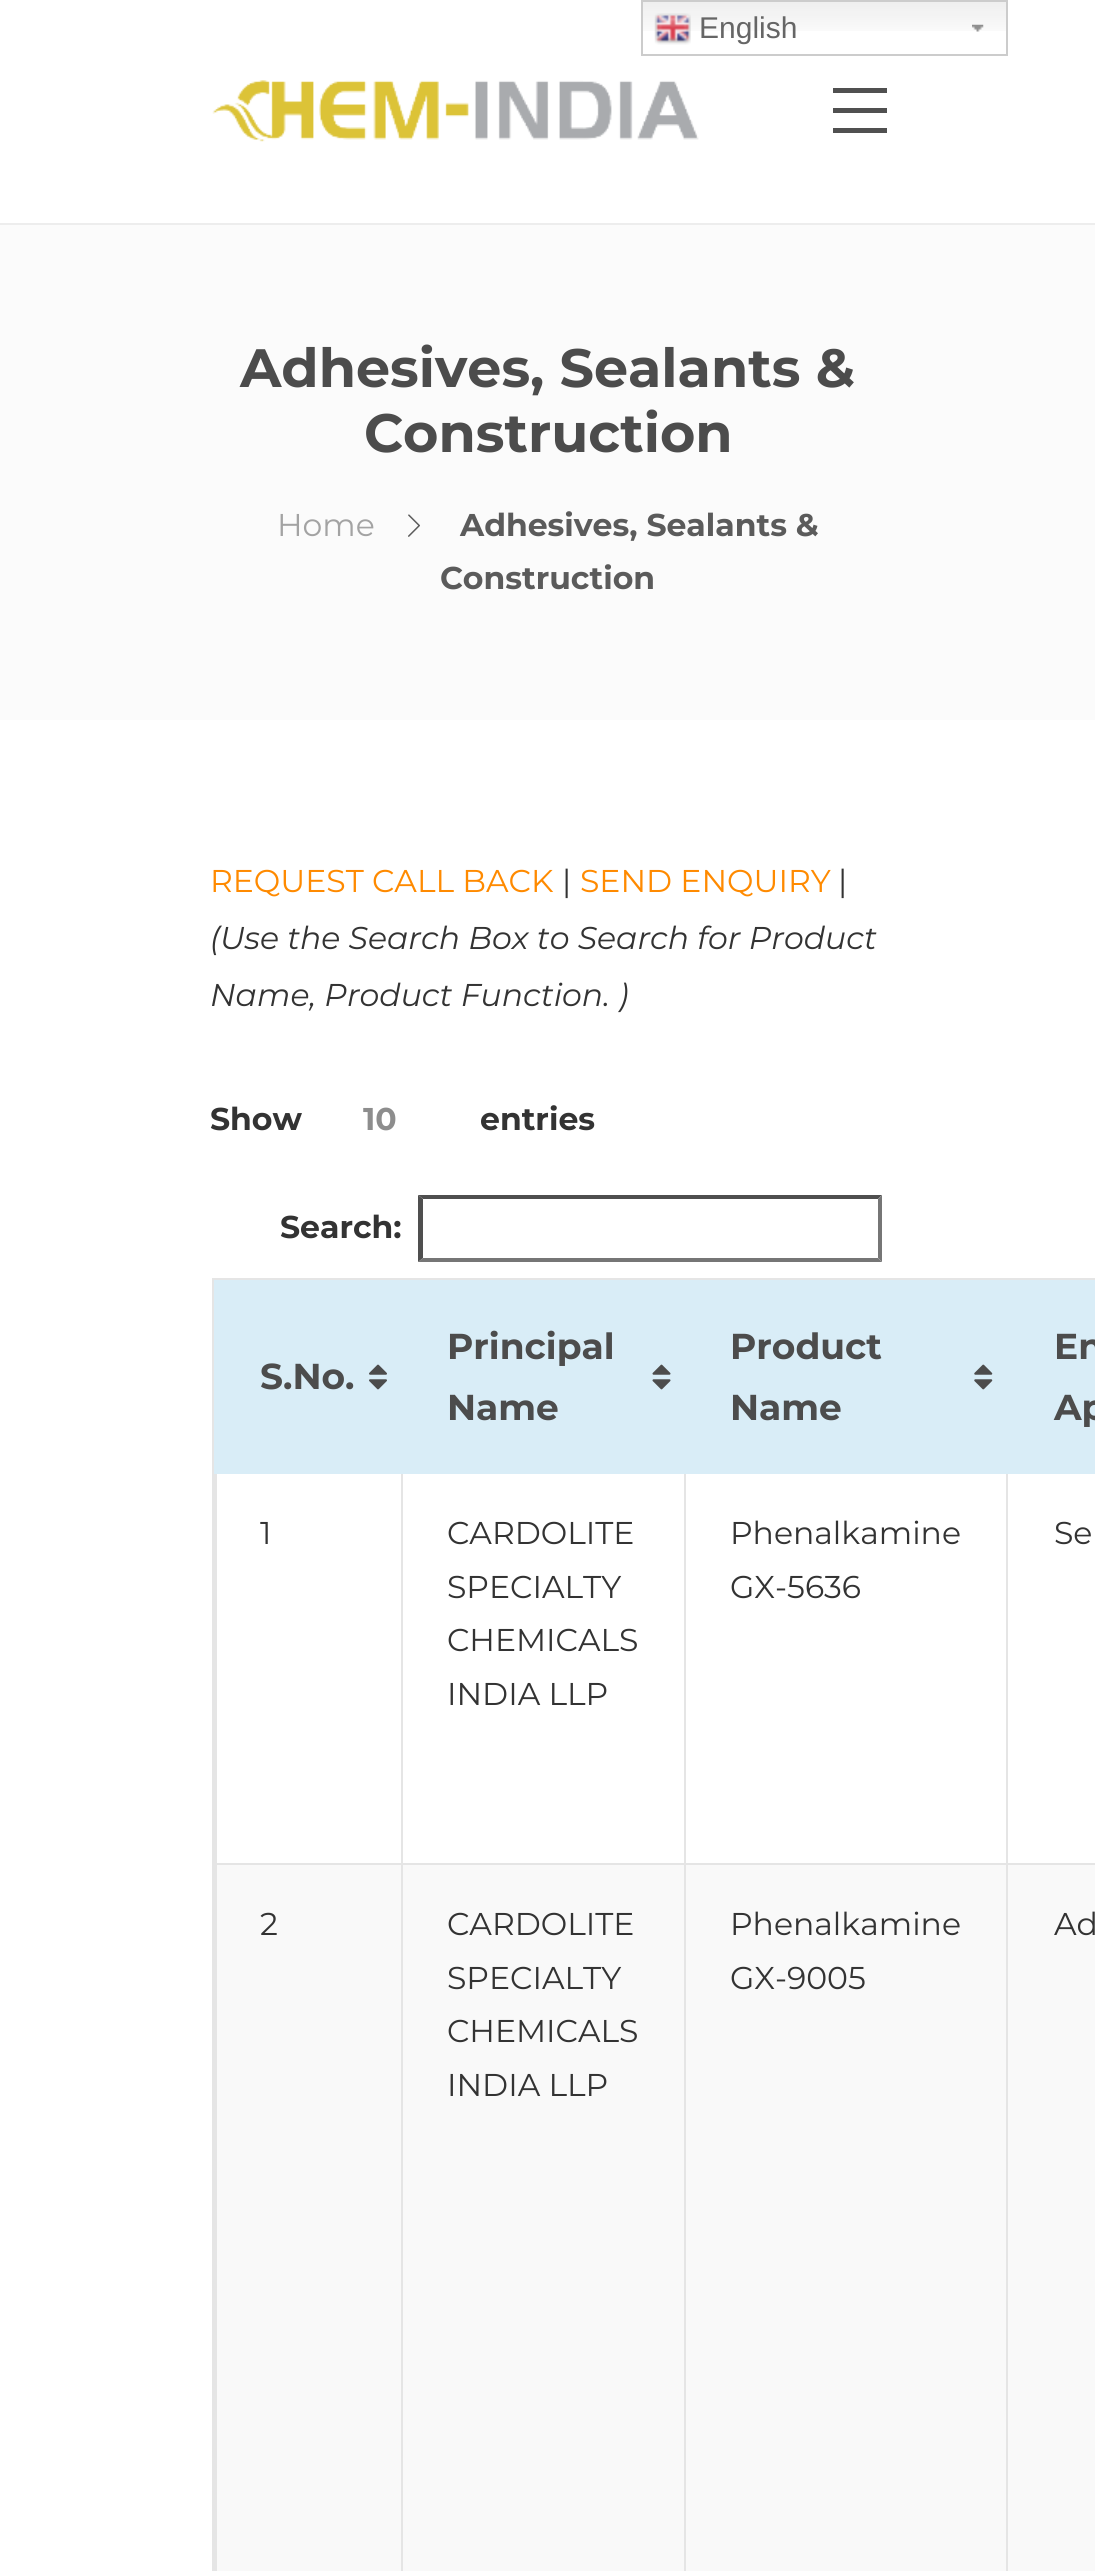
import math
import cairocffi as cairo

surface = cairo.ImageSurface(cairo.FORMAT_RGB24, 1095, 2571)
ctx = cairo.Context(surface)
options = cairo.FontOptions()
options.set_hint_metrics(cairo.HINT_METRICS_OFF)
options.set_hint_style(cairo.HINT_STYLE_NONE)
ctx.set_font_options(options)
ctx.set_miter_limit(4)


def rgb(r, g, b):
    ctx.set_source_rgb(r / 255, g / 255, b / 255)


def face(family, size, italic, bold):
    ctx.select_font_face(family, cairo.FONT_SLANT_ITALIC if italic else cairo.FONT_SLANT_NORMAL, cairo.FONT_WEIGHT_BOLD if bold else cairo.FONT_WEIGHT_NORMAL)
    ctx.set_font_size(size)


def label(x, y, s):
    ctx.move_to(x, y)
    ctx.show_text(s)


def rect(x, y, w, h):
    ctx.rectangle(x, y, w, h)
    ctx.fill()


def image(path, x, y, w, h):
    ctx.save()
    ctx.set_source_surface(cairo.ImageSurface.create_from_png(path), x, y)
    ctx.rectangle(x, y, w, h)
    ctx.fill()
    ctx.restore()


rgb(255, 255, 255)
ctx.paint()
image('image0.png', 643, 2, 363, 29)
image('image1.png', 972, 24, 12, 8)
ctx.rectangle(642, 1, 365, 54)
rgb(204, 204, 204)
ctx.stroke()
image('image2.png', 654, 13, 37, 32)
face('Liberation Sans', 30, 0, 0)
rgb(102, 102, 102)
label(699, 38, 'English')
rgb(237, 237, 237)
rect(0, 223, 1095, 2)
image('image3.png', 212, 80, 487, 62)
rgb(80, 80, 80)
rect(833, 108, 54, 5)
rect(833, 88, 54, 5)
rect(833, 128, 54, 5)
rgb(251, 251, 251)
rect(0, 225, 1095, 495)
face('Montserrat', 54, 0, 1)
rgb(76, 76, 76)
label(240, 387, 'Adhesives, Sealants &')
label(364, 452, 'Construction')
face('Montserrat', 31.5, 0, 0)
rgb(163, 163, 163)
label(277, 536, 'Home')
image('image4.png', 408, 514, 12, 23)
face('Montserrat', 31.5, 0, 1)
rgb(91, 91, 91)
label(460, 536, 'Adhesives, Sealants &')
label(440, 589, 'Construction')
face('Montserrat', 31.5, 0, 0)
rgb(255, 138, 0)
label(210, 892, 'REQUEST CALL BACK')
rgb(51, 51, 51)
label(562, 892, '|')
rgb(255, 138, 0)
label(580, 892, 'SEND ENQUIRY')
rgb(51, 51, 51)
label(838, 892, '|')
face('Montserrat', 31.5, 1, 0)
label(210, 949, '(Use the Search Box to Search for Product')
label(210, 1006, 'Name, Product Function. )')
face('Montserrat', 31.5, 0, 1)
label(210, 1130, 'Show')
rgb(141, 141, 141)
label(363, 1130, '10')
rgb(51, 51, 51)
label(480, 1130, 'entries')
rgb(79, 79, 79)
ctx.new_path()
ctx.move_to(418, 1195)
ctx.line_to(882, 1195)
ctx.line_to(878, 1199)
ctx.line_to(423, 1199)
ctx.close_path()
ctx.fill()
rgb(51, 51, 51)
label(280, 1238, 'Search:')
rgb(118, 118, 118)
ctx.new_path()
ctx.move_to(882, 1195)
ctx.line_to(882, 1262)
ctx.line_to(878, 1258)
ctx.line_to(878, 1199)
ctx.close_path()
ctx.fill()
ctx.new_path()
ctx.move_to(882, 1262)
ctx.line_to(418, 1262)
ctx.line_to(423, 1258)
ctx.line_to(878, 1258)
ctx.close_path()
ctx.fill()
rgb(79, 79, 79)
ctx.new_path()
ctx.move_to(418, 1262)
ctx.line_to(418, 1195)
ctx.line_to(423, 1199)
ctx.line_to(423, 1258)
ctx.close_path()
ctx.fill()
rgb(229, 229, 229)
rect(212, 1278, 883, 2)
rect(1006, 1863, 89, 2)
rect(1006, 1863, 2, 708)
rect(684, 1863, 324, 2)
rect(684, 1863, 2, 708)
rect(401, 1863, 285, 2)
rect(401, 1863, 2, 708)
rect(212, 1863, 191, 2)
rect(212, 1278, 5, 1293)
rect(401, 1472, 2, 393)
rect(684, 1472, 2, 393)
rect(1006, 1472, 2, 393)
rgb(217, 237, 247)
rect(214, 1280, 881, 194)
face('Montserrat', 36, 0, 1)
rgb(76, 76, 76)
label(260, 1389, 'S.No.')
image('image5.png', 369, 1364, 18, 26)
label(447, 1359, 'Principal')
image('image6.png', 652, 1364, 19, 26)
label(447, 1420, 'Name')
label(730, 1359, 'Product')
image('image7.png', 974, 1364, 19, 26)
label(730, 1420, 'Name')
label(1054, 1359, 'En')
label(1054, 1420, 'Ap')
face('Montserrat', 31.5, 0, 0)
rgb(51, 51, 51)
label(260, 1544, '1')
label(447, 1544, 'CARDOLITE')
label(447, 1598, 'SPECIALTY')
label(447, 1651, 'CHEMICALS')
label(447, 1705, 'INDIA LLP')
label(730, 1544, 'Phenalkamine')
label(730, 1598, 'GX-5636')
label(1054, 1544, 'Se')
rgb(249, 249, 249)
rect(217, 1865, 184, 706)
rgb(51, 51, 51)
label(260, 1935, '2')
rgb(249, 249, 249)
rect(403, 1865, 281, 706)
rgb(51, 51, 51)
label(447, 1935, 'CARDOLITE')
label(447, 1989, 'SPECIALTY')
label(447, 2042, 'CHEMICALS')
label(447, 2096, 'INDIA LLP')
rgb(249, 249, 249)
rect(686, 1865, 320, 706)
rgb(51, 51, 51)
label(730, 1935, 'Phenalkamine')
label(730, 1989, 'GX-9005')
rgb(249, 249, 249)
rect(1008, 1865, 87, 706)
rgb(51, 51, 51)
label(1054, 1935, 'Ad')
surface.write_to_png('render.png')
